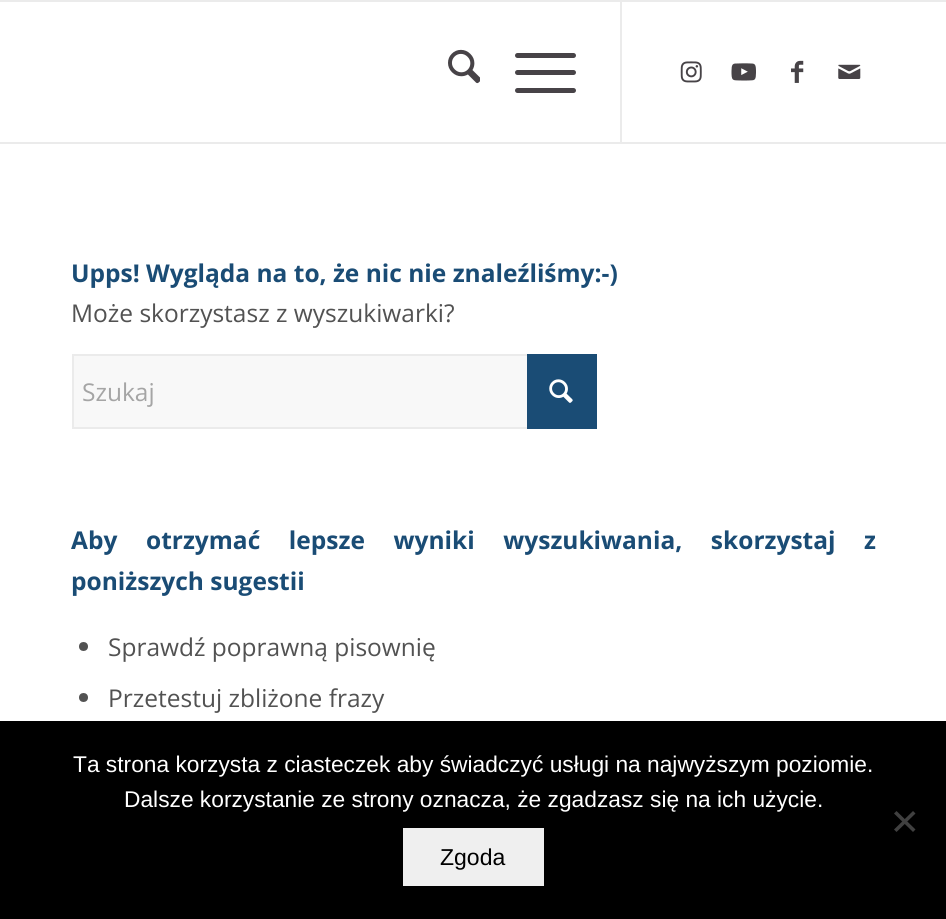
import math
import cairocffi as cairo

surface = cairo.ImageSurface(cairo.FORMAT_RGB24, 946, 919)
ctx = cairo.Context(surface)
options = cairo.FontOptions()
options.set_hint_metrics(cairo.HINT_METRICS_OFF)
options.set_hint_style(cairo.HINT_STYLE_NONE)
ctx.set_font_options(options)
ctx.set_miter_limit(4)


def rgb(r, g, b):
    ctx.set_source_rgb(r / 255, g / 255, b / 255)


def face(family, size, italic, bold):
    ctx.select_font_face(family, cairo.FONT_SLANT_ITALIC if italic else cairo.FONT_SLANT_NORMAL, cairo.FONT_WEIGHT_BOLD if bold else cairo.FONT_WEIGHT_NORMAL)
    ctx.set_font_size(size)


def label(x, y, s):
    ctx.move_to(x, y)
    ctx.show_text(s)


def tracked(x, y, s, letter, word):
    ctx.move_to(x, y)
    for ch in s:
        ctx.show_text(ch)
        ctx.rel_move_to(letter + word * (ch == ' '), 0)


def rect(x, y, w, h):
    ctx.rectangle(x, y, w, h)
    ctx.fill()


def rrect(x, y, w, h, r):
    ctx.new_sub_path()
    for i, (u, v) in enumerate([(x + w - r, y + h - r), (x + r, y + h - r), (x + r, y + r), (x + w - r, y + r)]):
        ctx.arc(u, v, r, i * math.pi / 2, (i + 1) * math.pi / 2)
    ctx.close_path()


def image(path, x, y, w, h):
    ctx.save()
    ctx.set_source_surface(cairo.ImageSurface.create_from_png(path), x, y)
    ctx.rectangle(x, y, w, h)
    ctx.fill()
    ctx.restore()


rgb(255, 255, 255)
ctx.paint()
rgb(235, 235, 235)
rect(0, 0, 946, 2)
rect(0, 142, 946, 2)
rect(620, 2, 2, 140)
image('image0.png', 448, 49, 32, 35)
rgb(71, 67, 71)
rrect(515, 70, 61, 5, 2.5)
ctx.fill()
rrect(515, 53, 61, 5, 2.5)
ctx.fill()
rrect(515, 88, 61, 5, 2.5)
ctx.fill()
image('image1.png', 680, 61, 22, 22)
image('image2.png', 731, 63, 25, 18)
image('image3.png', 791, 60, 13, 23)
image('image4.png', 838, 64, 23, 15)
face('Open Sans', 24.5, 0, 1)
rgb(26, 76, 117)
label(71, 282, 'Upps! Wygląda na to, że nic nie znaleźliśmy:-)')
face('Open Sans', 24.5, 0, 0)
rgb(82, 82, 82)
label(71, 322, 'Może skorzystasz z wyszukiwarki?')
rgb(248, 248, 248)
rect(74, 356, 453, 71)
ctx.rectangle(73, 355, 523, 73)
rgb(235, 235, 235)
ctx.stroke()
rgb(26, 76, 117)
rect(527, 354, 70, 75)
rgb(165, 165, 165)
label(82, 401, 'Szukaj')
image('image5.png', 549, 379, 24, 24)
face('Open Sans', 24.5, 0, 1)
rgb(26, 76, 117)
tracked(71, 549, 'Aby otrzymać lepsze wyniki wyszukiwania, skorzystaj z', 0, 22.25)
label(71, 590, 'poniższych sugestii')
rgb(82, 82, 82)
ctx.new_path()
ctx.arc(83.5, 646.5, 4.5, 0, 2 * math.pi)
ctx.fill()
face('Open Sans', 24.5, 0, 0)
label(108, 656, 'Sprawdź poprawną pisownię')
ctx.new_path()
ctx.arc(83.5, 697.5, 4.5, 0, 2 * math.pi)
ctx.fill()
label(108, 707, 'Przetestuj zbliżone frazy')
rgb(0, 0, 0)
rect(0, 721, 946, 198)
face('Liberation Sans', 22.75, 0, 0)
rgb(255, 255, 255)
label(73, 772, 'Ta strona korzysta z ciasteczek aby świadczyć usługi na najwyższym poziomie.')
label(124, 807, 'Dalsze korzystanie ze strony oznacza, że zgadzasz się na ich użycie.')
rgb(64, 64, 64)
ctx.new_path()
ctx.move_to(913, 811)
ctx.line_to(915.5, 813.5)
ctx.line_to(896.5, 832)
ctx.line_to(894, 829.5)
ctx.close_path()
ctx.fill()
ctx.new_path()
ctx.move_to(894, 813.5)
ctx.line_to(896.5, 811)
ctx.line_to(915.5, 829.5)
ctx.line_to(913, 832)
ctx.close_path()
ctx.fill()
rgb(239, 239, 239)
rect(403, 828, 141, 58)
face('Liberation Sans', 23, 0, 0)
rgb(0, 0, 0)
label(440, 865, 'Zgoda')
surface.write_to_png('render.png')
